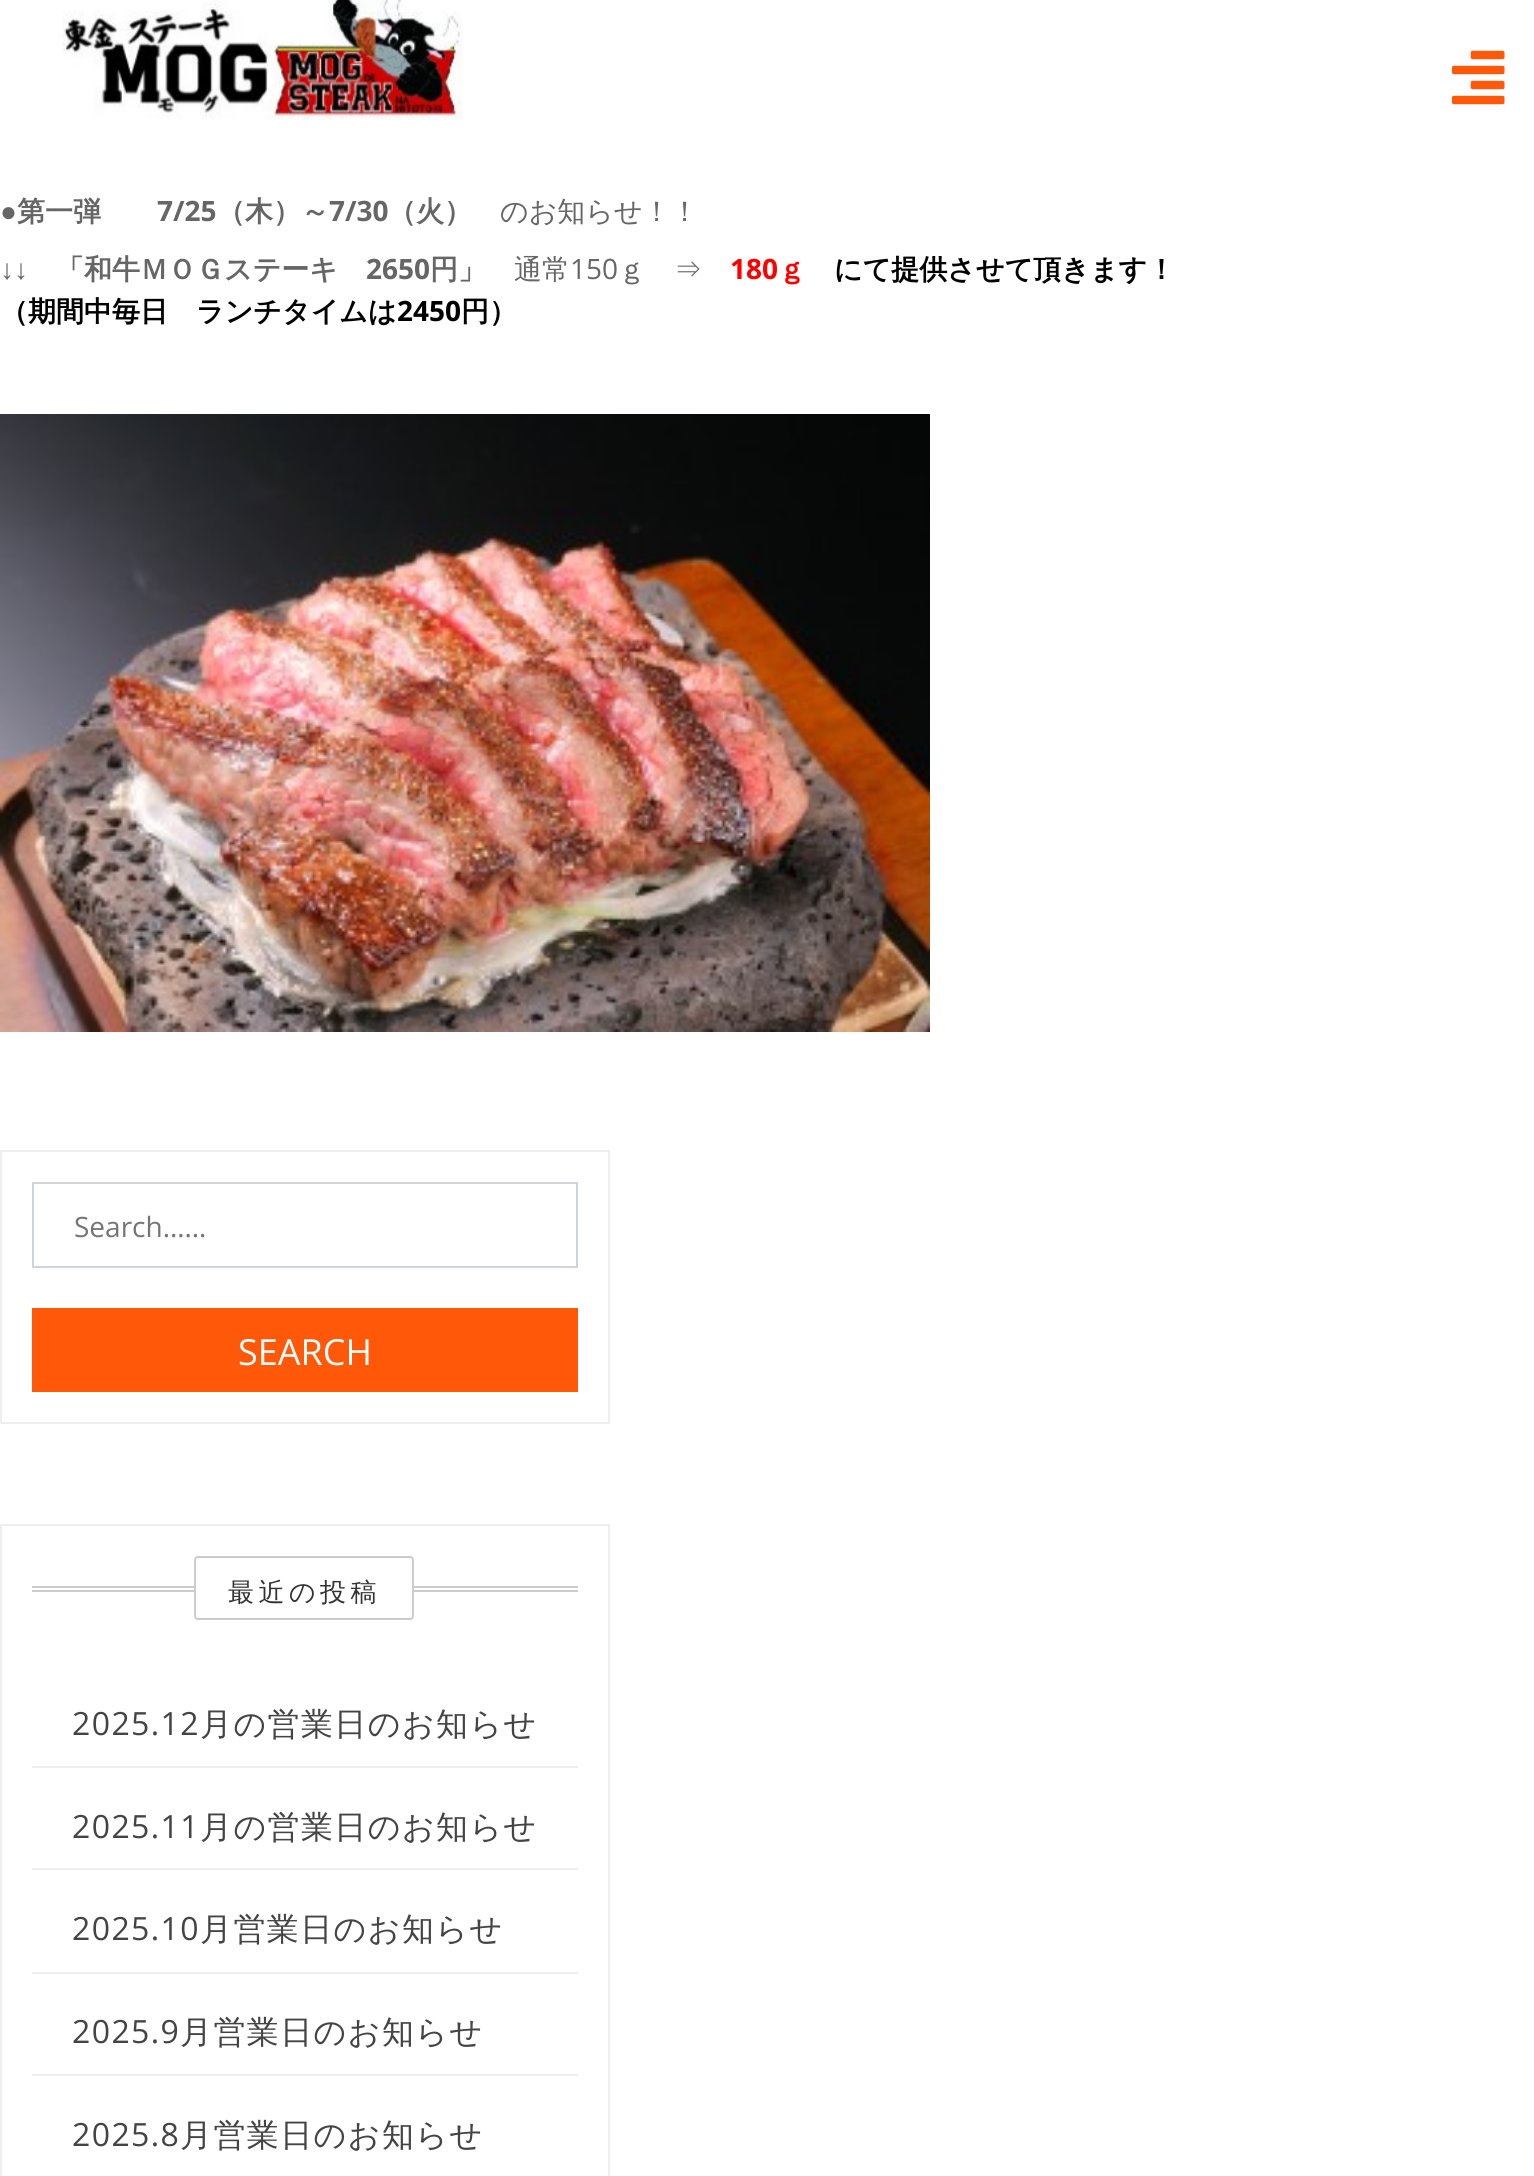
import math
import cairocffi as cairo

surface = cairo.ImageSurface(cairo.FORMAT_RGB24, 1534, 2176)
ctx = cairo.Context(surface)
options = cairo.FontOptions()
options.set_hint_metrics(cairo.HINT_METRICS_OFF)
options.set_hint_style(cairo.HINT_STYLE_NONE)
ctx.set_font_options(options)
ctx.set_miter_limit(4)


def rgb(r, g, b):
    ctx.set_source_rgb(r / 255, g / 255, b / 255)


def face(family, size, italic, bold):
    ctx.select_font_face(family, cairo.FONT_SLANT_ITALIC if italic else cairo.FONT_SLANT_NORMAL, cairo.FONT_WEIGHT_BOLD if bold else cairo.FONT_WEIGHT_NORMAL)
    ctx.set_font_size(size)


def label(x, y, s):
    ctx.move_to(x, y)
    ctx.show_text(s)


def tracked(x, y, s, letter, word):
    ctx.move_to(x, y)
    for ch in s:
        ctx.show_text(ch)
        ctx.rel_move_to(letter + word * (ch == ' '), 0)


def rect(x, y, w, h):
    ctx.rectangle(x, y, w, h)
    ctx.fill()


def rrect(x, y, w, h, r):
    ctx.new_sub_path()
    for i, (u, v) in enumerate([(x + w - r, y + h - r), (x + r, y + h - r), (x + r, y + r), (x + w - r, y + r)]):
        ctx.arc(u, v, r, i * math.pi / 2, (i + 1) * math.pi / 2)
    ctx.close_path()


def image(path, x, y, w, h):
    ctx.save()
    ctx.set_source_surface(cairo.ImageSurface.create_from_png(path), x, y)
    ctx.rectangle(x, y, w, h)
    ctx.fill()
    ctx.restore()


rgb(255, 255, 255)
ctx.paint()
image('image0.png', 62, 0, 400, 120)
image('image1.png', 1452, 50, 53, 55)
face('Liberation Sans', 28, 0, 0)
rgb(102, 102, 102)
label(0, 221, '●')
face('WenQuanYi Zen Hei', 28, 0, 1)
label(17, 221, '第一弾')
face('Open Sans', 28, 0, 1)
label(157, 221, '7/25')
face('WenQuanYi Zen Hei', 28, 0, 1)
label(217, 221, '（木）～')
face('Open Sans', 28, 0, 1)
label(329, 221, '7/30')
face('WenQuanYi Zen Hei', 28, 0, 1)
label(388, 221, '（火）')
face('WenQuanYi Zen Hei Medium', 28, 0, 0)
label(500, 221, 'のお知らせ！！')
face('Liberation Sans', 28, 0, 0)
label(0, 279, '↓↓')
face('WenQuanYi Zen Hei', 28, 0, 1)
label(56, 279, '「和牛ＭＯＧステーキ')
face('Open Sans', 28, 0, 1)
label(366, 279, '2650')
face('WenQuanYi Zen Hei', 28, 0, 1)
label(430, 279, '円」')
face('WenQuanYi Zen Hei Medium', 28, 0, 0)
label(514, 279, '通常')
face('Open Sans', 28, 0, 0)
label(570, 279, '150')
face('WenQuanYi Zen Hei Medium', 28, 0, 0)
label(618, 279, 'ｇ　⇒')
face('Open Sans', 28, 0, 1)
rgb(255, 0, 0)
label(730, 279, '180')
face('WenQuanYi Zen Hei', 28, 0, 1)
label(778, 279, 'ｇ')
rgb(0, 0, 0)
label(834, 279, 'にて提供させて頂きます！')
label(0, 321, '（期間中毎日　ランチタイムは')
face('Open Sans', 28, 0, 1)
label(397, 321, '2450')
face('WenQuanYi Zen Hei', 28, 0, 1)
label(461, 321, '円）')
image('image2.png', 0, 414, 930, 618)
ctx.rectangle(1, 1151, 608, 272)
rgb(238, 238, 238)
ctx.stroke()
ctx.rectangle(33, 1183, 544, 84)
rgb(206, 212, 218)
ctx.stroke()
face('Open Sans', 28, 0, 0)
rgb(117, 117, 117)
label(74, 1237, 'Search……')
rgb(255, 88, 9)
rect(32, 1308, 546, 84)
face('Open Sans', 36, 0, 0)
rgb(255, 255, 255)
label(238, 1365, 'SEARCH')
ctx.rectangle(1, 1525, 608, 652)
rgb(238, 238, 238)
ctx.stroke()
rgb(204, 204, 204)
rect(32, 1586, 546, 2)
rect(32, 1590, 546, 2)
rgb(255, 255, 255)
rrect(195, 1557, 218, 62, 3)
ctx.fill_preserve()
rgb(204, 204, 204)
ctx.stroke()
face('WenQuanYi Zen Hei Medium', 26, 0, 0)
rgb(51, 51, 51)
tracked(228, 1601, '最近の投稿', 4.5, 0)
rgb(238, 238, 238)
rect(32, 1766, 546, 2)
face('Open Sans', 32, 0, 0)
rgb(68, 68, 68)
tracked(72, 1735, '2025.12', 1.4, 0)
face('WenQuanYi Zen Hei Medium', 32, 0, 0)
tracked(200, 1735, '月の営業日のお知らせ', 1.4, 0)
rgb(238, 238, 238)
rect(32, 1868, 546, 2)
face('Open Sans', 32, 0, 0)
rgb(68, 68, 68)
tracked(72, 1838, '2025.11', 1.4, 0)
face('WenQuanYi Zen Hei Medium', 32, 0, 0)
tracked(200, 1838, '月の営業日のお知らせ', 1.4, 0)
rgb(238, 238, 238)
rect(32, 1972, 546, 2)
face('Open Sans', 32, 0, 0)
rgb(68, 68, 68)
tracked(72, 1940, '2025.10', 1.4, 0)
face('WenQuanYi Zen Hei Medium', 32, 0, 0)
tracked(200, 1940, '月営業日のお知らせ', 1.4, 0)
rgb(238, 238, 238)
rect(32, 2074, 546, 2)
face('Open Sans', 32, 0, 0)
rgb(68, 68, 68)
tracked(72, 2043, '2025.9', 1.4, 0)
face('WenQuanYi Zen Hei Medium', 32, 0, 0)
tracked(180, 2043, '月営業日のお知らせ', 1.4, 0)
face('Open Sans', 32, 0, 0)
tracked(72, 2146, '2025.8', 1.4, 0)
face('WenQuanYi Zen Hei Medium', 32, 0, 0)
tracked(180, 2146, '月営業日のお知らせ', 1.4, 0)
surface.write_to_png('render.png')
